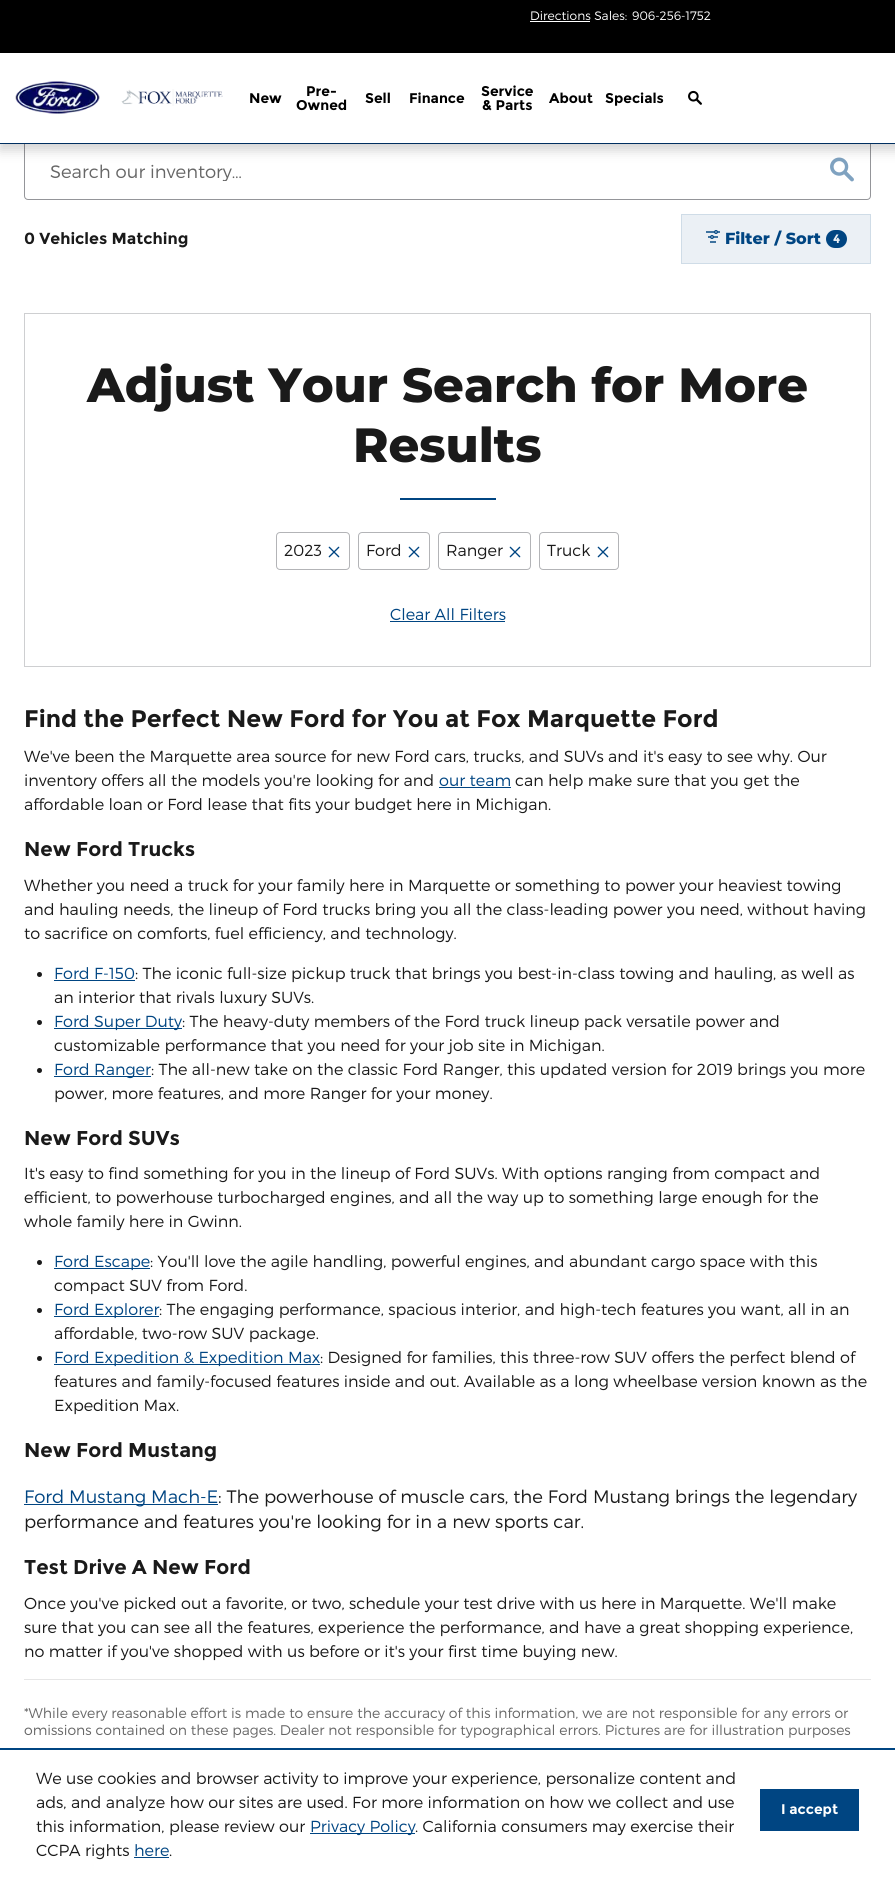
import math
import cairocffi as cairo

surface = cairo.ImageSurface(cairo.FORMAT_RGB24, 895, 1878)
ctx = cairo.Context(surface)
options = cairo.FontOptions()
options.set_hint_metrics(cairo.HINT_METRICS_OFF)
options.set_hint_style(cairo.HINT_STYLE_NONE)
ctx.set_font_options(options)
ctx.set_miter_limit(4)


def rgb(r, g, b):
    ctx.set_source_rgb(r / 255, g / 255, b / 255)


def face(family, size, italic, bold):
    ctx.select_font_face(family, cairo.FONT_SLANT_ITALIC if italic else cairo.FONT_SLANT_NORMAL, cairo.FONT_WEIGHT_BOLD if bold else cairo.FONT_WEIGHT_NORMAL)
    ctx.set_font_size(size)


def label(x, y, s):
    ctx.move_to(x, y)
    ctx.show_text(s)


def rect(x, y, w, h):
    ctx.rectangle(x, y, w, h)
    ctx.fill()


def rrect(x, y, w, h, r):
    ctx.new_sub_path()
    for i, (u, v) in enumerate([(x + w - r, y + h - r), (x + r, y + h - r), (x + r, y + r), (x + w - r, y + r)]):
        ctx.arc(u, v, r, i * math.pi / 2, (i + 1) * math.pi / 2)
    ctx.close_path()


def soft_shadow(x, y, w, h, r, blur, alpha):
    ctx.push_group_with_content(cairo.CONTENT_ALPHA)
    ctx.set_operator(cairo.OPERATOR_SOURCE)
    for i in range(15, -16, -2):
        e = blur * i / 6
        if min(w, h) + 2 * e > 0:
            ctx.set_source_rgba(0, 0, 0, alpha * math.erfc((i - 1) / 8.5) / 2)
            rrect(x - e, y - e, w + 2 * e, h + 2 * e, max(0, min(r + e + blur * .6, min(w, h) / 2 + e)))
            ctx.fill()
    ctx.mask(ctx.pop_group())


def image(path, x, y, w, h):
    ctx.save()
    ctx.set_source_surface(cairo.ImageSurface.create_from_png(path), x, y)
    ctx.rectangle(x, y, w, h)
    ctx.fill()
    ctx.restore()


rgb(255, 255, 255)
ctx.paint()
rrect(24.5, 140.5, 846, 59, 3.5)
rgb(148, 149, 153)
ctx.set_line_width(1)
ctx.stroke()
image('image3.png', 830, 157, 24, 25)
rgb(0, 0, 0)
soft_shadow(0, 6, 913, 144, 0, 6, 0.18)
rgb(255, 255, 255)
rect(0, 53, 895, 90)
rgb(0, 47, 96)
rect(0, 143, 895, 1)
rgb(0, 0, 0)
rect(0, 0, 895, 53)
face('Montserrat Light', 12.25, 0, 0)
rgb(255, 255, 255)
label(530, 20, 'Directions Sales:')
rect(530, 21, 60, 1)
label(632, 20, '906-256-1752')
image('image0.png', 15, 81, 85, 33)
image('image1.png', 121, 89, 102, 17)
face('Montserrat', 14, 0, 1)
rgb(0, 0, 0)
label(249, 103, 'New')
label(306, 96, 'Pre-')
label(296, 110, 'Owned')
label(365, 103, 'Sell')
label(409, 103, 'Finance')
label(481, 96, 'Service')
label(482, 110, '& Parts')
label(549, 103, 'About')
label(605, 103, 'Specials')
image('image2.png', 688, 90, 14, 15)
ctx.save()
ctx.rectangle(50, 160, 735, 21)
ctx.clip()
face('Montserrat Light', 18, 0, 0)
rgb(102, 102, 102)
label(50, 178, 'Search our inventory…')
ctx.restore()
face('Montserrat', 16, 0, 1)
rgb(26, 26, 26)
label(24, 244, '0 Vehicles Matching')
rgb(235, 240, 245)
ctx.rectangle(681.5, 214.5, 189, 49)
ctx.fill_preserve()
rgb(207, 220, 231)
ctx.stroke()
image('image4.png', 706, 230, 14, 13)
face('Montserrat ExtraBold', 16, 0, 0)
rgb(0, 69, 130)
label(725, 244, 'Filter / Sort')
rrect(826, 230, 21, 18, 9)
ctx.fill()
face('Montserrat', 12.25, 0, 1)
rgb(235, 240, 245)
label(833, 243, '4')
ctx.rectangle(24.5, 313.5, 846, 353)
rgb(206, 207, 209)
ctx.stroke()
face('Montserrat ExtraBold', 48, 0, 0)
rgb(26, 26, 26)
label(87, 402, 'Adjust Your Search for More')
label(353, 462, 'Results')
rgb(0, 69, 130)
rect(400, 498, 96, 2)
rrect(276.5, 532.5, 73, 37, 3.5)
rgb(179, 180, 183)
ctx.stroke()
face('Montserrat Light', 16, 0, 0)
rgb(26, 26, 26)
label(284, 556, '2023')
image('image5.png', 328, 546, 12, 12)
rrect(358.5, 532.5, 71, 37, 3.5)
rgb(179, 180, 183)
ctx.stroke()
rgb(26, 26, 26)
label(366, 556, 'Ford')
image('image5.png', 408, 546, 12, 12)
rrect(438.5, 532.5, 92, 37, 3.5)
rgb(179, 180, 183)
ctx.stroke()
rgb(26, 26, 26)
label(446, 556, 'Ranger')
image('image5.png', 509, 546, 12, 12)
rrect(539.5, 532.5, 79, 37, 3.5)
rgb(179, 180, 183)
ctx.stroke()
rgb(26, 26, 26)
label(547, 556, 'Truck')
image('image5.png', 597, 546, 12, 12)
rgb(0, 69, 130)
label(390, 620, 'Clear All Filters')
rect(390, 621, 115, 1)
face('Montserrat', 24, 0, 1)
rgb(26, 26, 26)
label(24, 727, 'Find the Perfect New Ford for You at Fox Marquette Ford')
face('Montserrat Light', 16, 0, 0)
label(24, 762, 'We\'ve been the Marquette area source for new Ford cars, trucks, and SUVs and it\'s easy to see why. Our')
label(24, 786, 'inventory offers all the models you\'re looking for and')
rgb(0, 69, 130)
label(439, 786, 'our team')
rect(439, 787, 72, 1)
rgb(26, 26, 26)
label(515, 786, 'can help make sure that you get the')
label(24, 810, 'affordable loan or Ford lease that fits your budget here in Michigan.')
face('Montserrat', 20, 0, 1)
label(24, 856, 'New Ford Trucks')
face('Montserrat Light', 16, 0, 0)
label(24, 891, 'Whether you need a truck for your family here in Marquette or something to power your heaviest towing')
label(24, 915, 'and hauling needs, the lineup of Ford trucks bring you all the class-leading power you need, without having')
label(24, 939, 'to sacrifice on comforts, fuel efficiency, and technology.')
ctx.new_path()
ctx.arc(39.5, 974.5, 2.5, 0, 2 * math.pi)
ctx.fill()
rgb(0, 69, 130)
label(54, 979, 'Ford F-150')
rect(54, 980, 81, 1)
rgb(26, 26, 26)
label(135, 979, ': The iconic full-size pickup truck that brings you best-in-class towing and hauling, as well as')
label(54, 1003, 'an interior that rivals luxury SUVs.')
ctx.new_path()
ctx.arc(39.5, 1022.5, 2.5, 0, 2 * math.pi)
ctx.fill()
rgb(0, 69, 130)
rect(54, 1028, 128, 1)
label(54, 1027, 'Ford Super Duty')
rgb(26, 26, 26)
label(182, 1027, ': The heavy-duty members of the Ford truck lineup pack versatile power and')
label(54, 1051, 'customizable performance that you need for your job site in Michigan.')
ctx.new_path()
ctx.arc(39.5, 1070.5, 2.5, 0, 2 * math.pi)
ctx.fill()
rgb(0, 69, 130)
rect(54, 1076, 97, 1)
label(54, 1075, 'Ford Ranger')
rgb(26, 26, 26)
label(151, 1075, ': The all-new take on the classic Ford Ranger, this updated version for 2019 brings you more')
label(54, 1099, 'power, more features, and more Ranger for your money.')
face('Montserrat', 20, 0, 1)
label(24, 1145, 'New Ford SUVs')
face('Montserrat Light', 16, 0, 0)
label(24, 1179, 'It\'s easy to find something for you in the lineup of Ford SUVs. With options ranging from compact and')
label(24, 1203, 'efficient, to powerhouse turbocharged engines, and all the way up to something large enough for the')
label(24, 1227, 'whole family here in Gwinn.')
ctx.new_path()
ctx.arc(39.5, 1262.5, 2.5, 0, 2 * math.pi)
ctx.fill()
rgb(0, 69, 130)
rect(54, 1268, 96, 1)
label(54, 1267, 'Ford Escape')
rgb(26, 26, 26)
label(150, 1267, ': You\'ll love the agile handling, powerful engines, and abundant cargo space with this')
label(54, 1291, 'compact SUV from Ford.')
ctx.new_path()
ctx.arc(39.5, 1310.5, 2.5, 0, 2 * math.pi)
ctx.fill()
rgb(0, 69, 130)
rect(54, 1316, 105, 1)
label(54, 1315, 'Ford Explorer')
rgb(26, 26, 26)
label(159, 1315, ': The engaging performance, spacious interior, and high-tech features you want, all in an')
label(54, 1339, 'affordable, two-row SUV package.')
ctx.new_path()
ctx.arc(39.5, 1358.5, 2.5, 0, 2 * math.pi)
ctx.fill()
rgb(0, 69, 130)
rect(54, 1364, 266, 1)
label(54, 1363, 'Ford Expedition & Expedition Max')
rgb(26, 26, 26)
label(320, 1363, ': Designed for families, this three-row SUV offers the perfect blend of')
label(54, 1387, 'features and family-focused features inside and out. Available as a long wheelbase version known as the')
label(54, 1411, 'Expedition Max.')
face('Montserrat', 20, 0, 1)
label(24, 1457, 'New Ford Mustang')
rgb(0, 69, 130)
rect(24, 1504, 194, 1)
face('Montserrat Light', 18, 0, 0)
label(24, 1503, 'Ford Mustang Mach-E')
rgb(26, 26, 26)
label(218, 1503, ': The powerhouse of muscle cars, the Ford Mustang brings the legendary')
label(24, 1528, 'performance and features you\'re looking for in a new sports car.')
face('Montserrat', 20, 0, 1)
label(24, 1574, 'Test Drive A New Ford')
face('Montserrat Light', 16, 0, 0)
label(24, 1609, 'Once you\'ve picked out a favorite, or two, schedule your test drive with us here in Marquette. We\'ll make')
label(24, 1633, 'sure that you can see all the features, experience the performance, and have a great shopping experience,')
label(24, 1657, 'no matter if you\'ve shopped with us before or it\'s your first time buying new.')
rgb(230, 230, 230)
rect(24, 1679, 847, 1)
face('Montserrat Light', 14, 0, 0)
rgb(102, 102, 102)
label(24, 1718, '*While every reasonable effort is made to ensure the accuracy of this information, we are not responsible for any errors or')
label(24, 1735, 'omissions contained on these pages. Dealer not responsible for typographical errors. Pictures are for illustration purposes')
rgb(0, 69, 130)
rect(0, 1748, 895, 2)
face('Montserrat Light', 16, 0, 0)
rgb(26, 26, 26)
label(36, 1784, 'We use cookies and browser activity to improve your experience, personalize content and')
label(36, 1808, 'ads, and analyze how our sites are used. For more information on how we collect and use')
label(36, 1832, 'this information, please review our')
rgb(0, 69, 130)
rect(310, 1833, 105, 1)
label(310, 1832, 'Privacy Policy')
rgb(26, 26, 26)
label(415, 1832, '. California consumers may exercise their')
label(36, 1856, 'CCPA rights')
rgb(0, 69, 130)
label(134, 1856, 'here')
rect(134, 1857, 35, 1)
rgb(26, 26, 26)
label(169, 1856, '.')
rgb(0, 69, 130)
rect(760, 1789, 99, 42)
face('Montserrat', 14, 0, 1)
rgb(255, 255, 255)
label(781, 1814, 'I accept')
surface.write_to_png('render.png')
